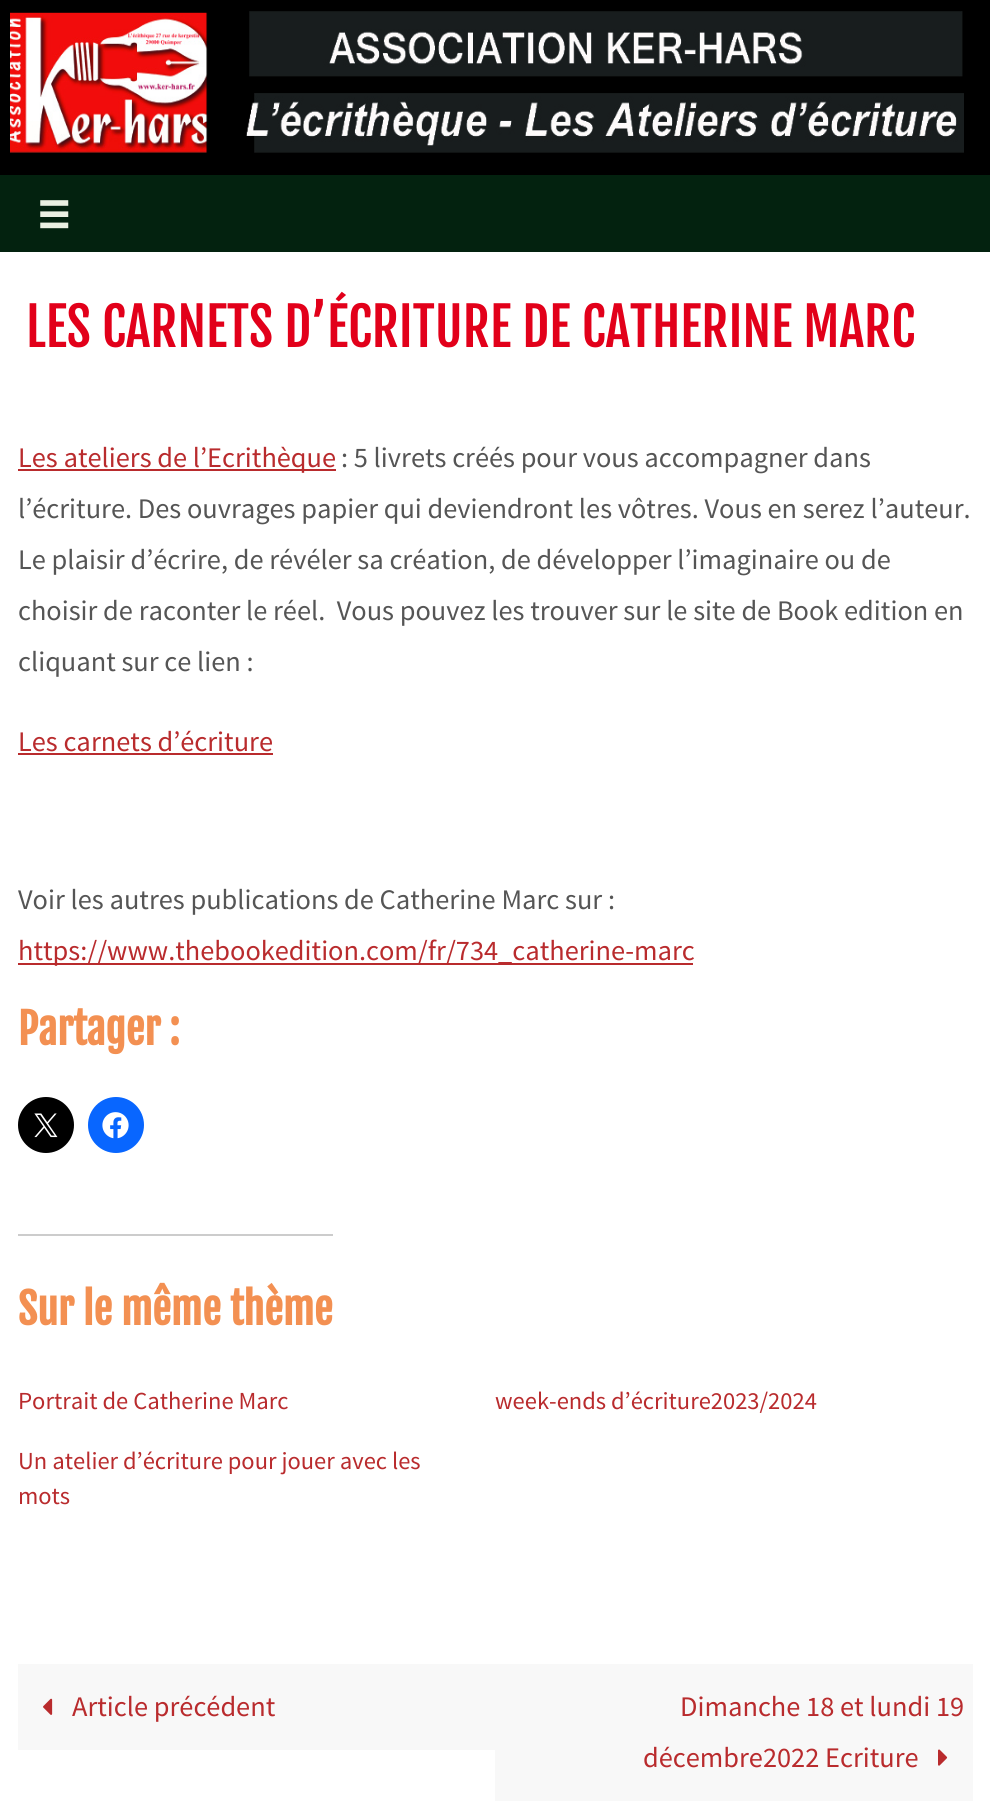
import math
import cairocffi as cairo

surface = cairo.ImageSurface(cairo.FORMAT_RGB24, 990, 1808)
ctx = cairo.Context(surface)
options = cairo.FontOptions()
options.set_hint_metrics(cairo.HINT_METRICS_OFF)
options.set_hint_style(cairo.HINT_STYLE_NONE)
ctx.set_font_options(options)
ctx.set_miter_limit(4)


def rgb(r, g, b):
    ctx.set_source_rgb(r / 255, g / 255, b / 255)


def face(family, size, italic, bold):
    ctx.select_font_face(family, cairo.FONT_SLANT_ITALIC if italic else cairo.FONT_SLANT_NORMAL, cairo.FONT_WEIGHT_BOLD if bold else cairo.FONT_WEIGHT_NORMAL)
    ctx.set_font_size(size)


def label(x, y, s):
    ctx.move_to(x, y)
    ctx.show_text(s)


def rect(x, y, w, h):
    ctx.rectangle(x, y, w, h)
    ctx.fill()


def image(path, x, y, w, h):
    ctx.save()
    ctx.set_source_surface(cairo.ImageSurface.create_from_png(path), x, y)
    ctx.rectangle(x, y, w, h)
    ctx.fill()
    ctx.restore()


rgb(255, 255, 255)
ctx.paint()
image('image0.png', 0, 0, 990, 175)
rgb(3, 34, 15)
rect(0, 175, 990, 77)
image('image1.png', 40, 200, 29, 29)
face('Fjalla One', 52.5, 0, 0)
rgb(226, 0, 26)
label(26, 347, 'LES CARNETS D’ÉCRITURE DE CATHERINE MARC')
rgb(185, 43, 45)
rect(18, 469, 318, 2)
face('Source Sans Pro', 28.35, 0, 0)
label(18, 467, 'Les ateliers de l’Ecrithèque')
rgb(85, 85, 85)
label(341, 467, ': 5 livrets créés pour vous accompagner dans')
label(18, 518, 'l’écriture. Des ouvrages papier qui deviendront les vôtres. Vous en serez l’auteur.')
label(18, 569, 'Le plaisir d’écrire, de révéler sa création, de développer l’imaginaire ou de')
label(18, 620, 'choisir de raconter le réel.  Vous pouvez les trouver sur le site de Book edition en')
label(18, 671, 'cliquant sur ce lien :')
rgb(185, 43, 45)
label(18, 751, 'Les carnets d’écriture')
rect(18, 753, 255, 2)
rgb(85, 85, 85)
label(18, 909, 'Voir les autres publications de Catherine Marc sur :')
rgb(185, 43, 45)
rect(18, 963, 675, 2)
label(18, 960, 'https://www.thebookedition.com/fr/734_catherine-marc')
face('Fjalla One', 42, 0, 1)
rgb(243, 144, 82)
label(18, 1045, 'Partager :')
rgb(0, 0, 0)
ctx.new_path()
ctx.arc(46, 1125, 28, 0, 2 * math.pi)
ctx.fill()
image('image2.png', 34, 1113, 24, 25)
rgb(8, 102, 255)
ctx.arc(116, 1125, 28, 0, 2 * math.pi)
ctx.fill()
image('image3.png', 102, 1112, 27, 27)
rgb(204, 204, 204)
rect(18, 1234, 315, 2)
rgb(243, 144, 82)
label(18, 1325, 'Sur le même thème')
face('Source Sans Pro', 24.5, 0, 0)
rgb(185, 43, 45)
label(18, 1409, 'Portrait de Catherine Marc')
label(495, 1409, 'week-ends d’écriture2023/2024')
label(18, 1469, 'Un atelier d’écriture pour jouer avec les')
label(18, 1504, 'mots')
rgb(248, 248, 248)
rect(18, 1664, 477, 86)
image('image4.png', 43, 1698, 10, 17)
face('Source Sans Pro', 28.35, 0, 0)
rgb(185, 43, 45)
label(72, 1716, 'Article précédent')
rgb(248, 248, 248)
rect(495, 1664, 478, 137)
rgb(185, 43, 45)
label(680, 1716, 'Dimanche 18 et lundi 19')
label(643, 1767, 'décembre2022 Ecriture')
image('image5.png', 938, 1749, 10, 17)
surface.write_to_png('render.png')
